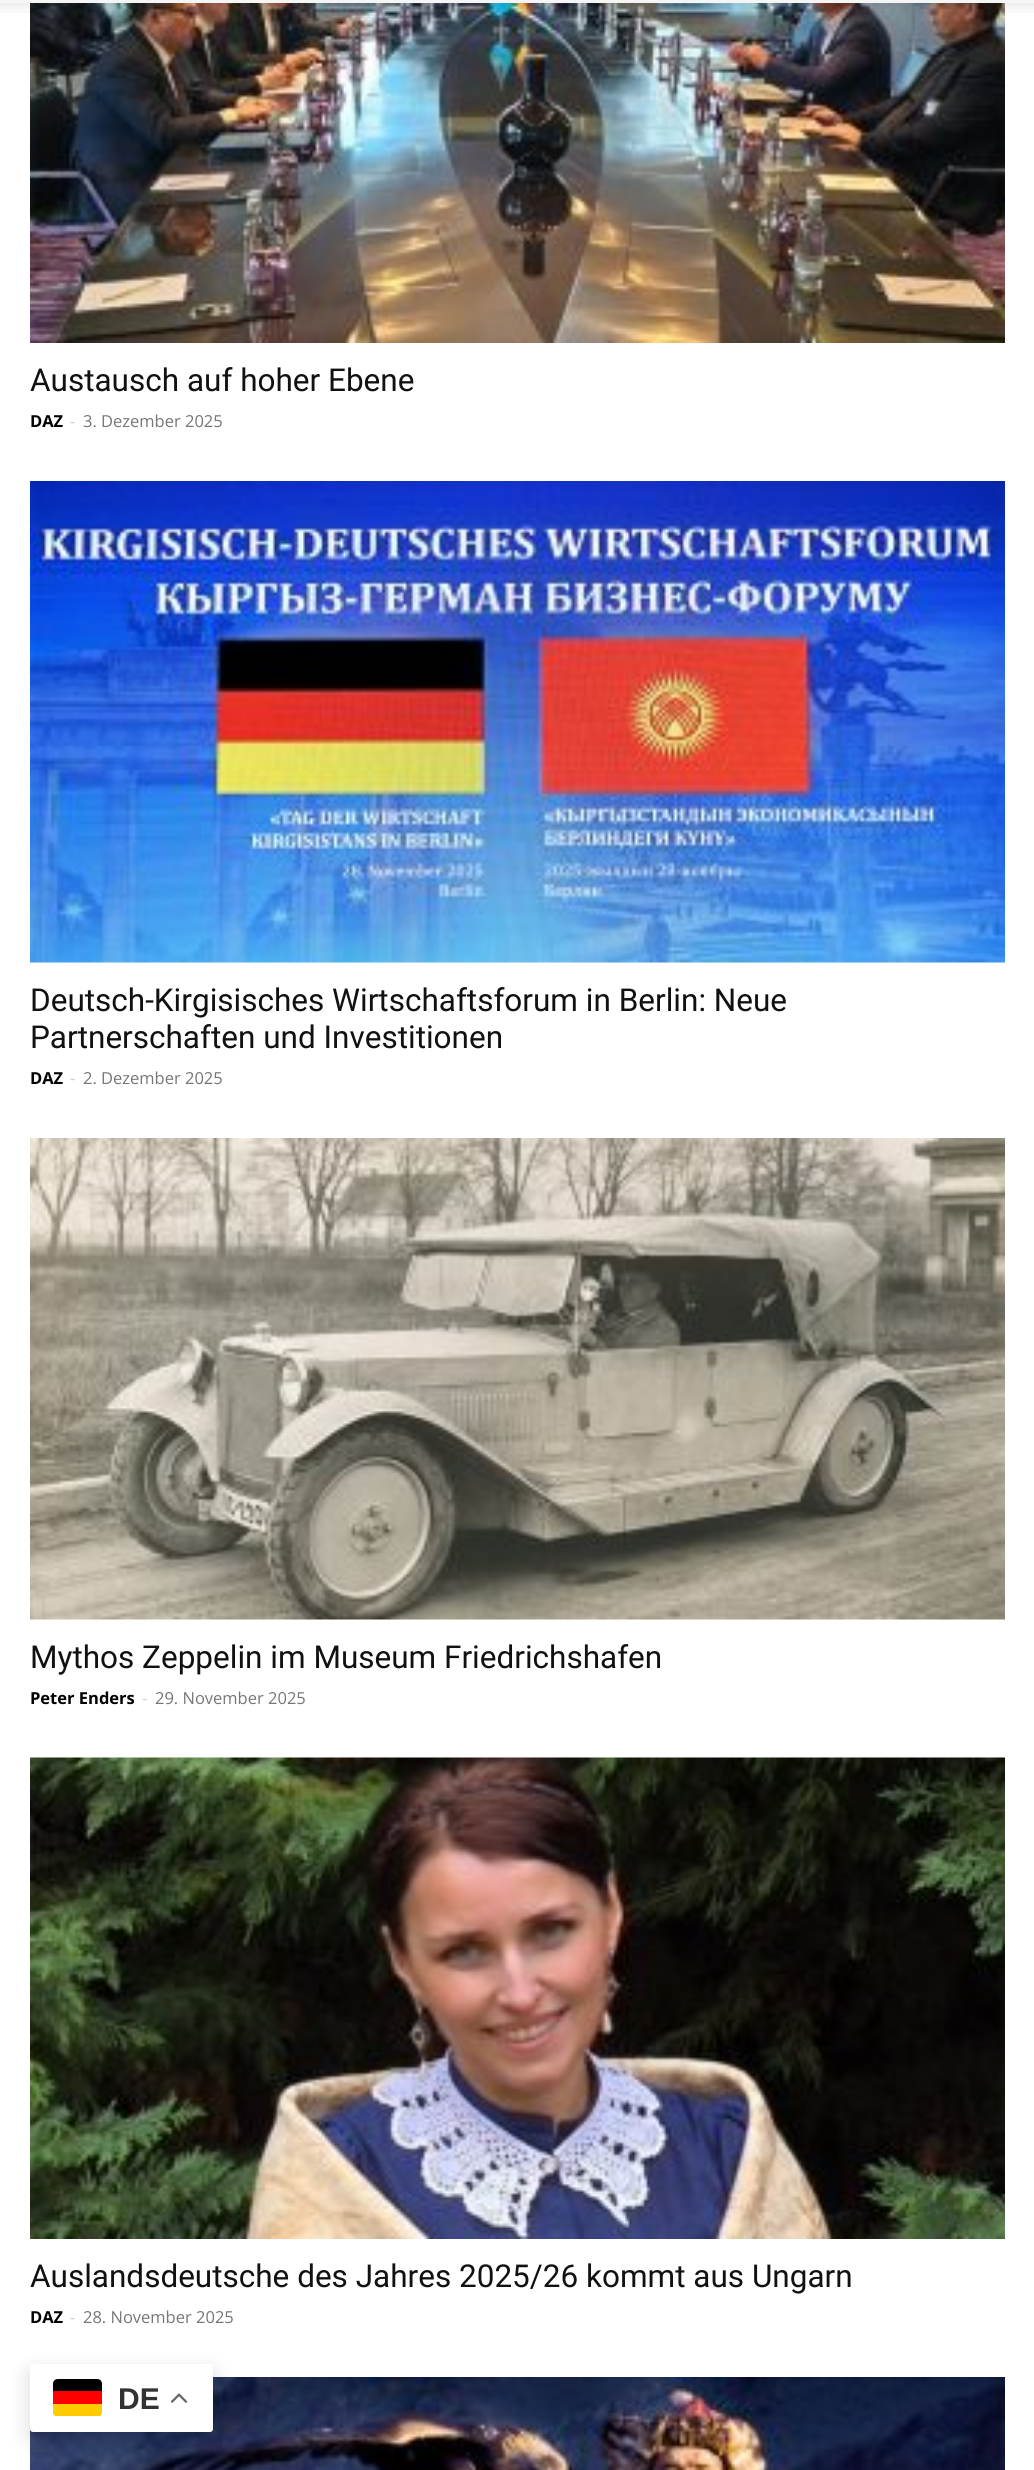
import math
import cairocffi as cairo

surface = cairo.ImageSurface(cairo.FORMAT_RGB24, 1034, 2470)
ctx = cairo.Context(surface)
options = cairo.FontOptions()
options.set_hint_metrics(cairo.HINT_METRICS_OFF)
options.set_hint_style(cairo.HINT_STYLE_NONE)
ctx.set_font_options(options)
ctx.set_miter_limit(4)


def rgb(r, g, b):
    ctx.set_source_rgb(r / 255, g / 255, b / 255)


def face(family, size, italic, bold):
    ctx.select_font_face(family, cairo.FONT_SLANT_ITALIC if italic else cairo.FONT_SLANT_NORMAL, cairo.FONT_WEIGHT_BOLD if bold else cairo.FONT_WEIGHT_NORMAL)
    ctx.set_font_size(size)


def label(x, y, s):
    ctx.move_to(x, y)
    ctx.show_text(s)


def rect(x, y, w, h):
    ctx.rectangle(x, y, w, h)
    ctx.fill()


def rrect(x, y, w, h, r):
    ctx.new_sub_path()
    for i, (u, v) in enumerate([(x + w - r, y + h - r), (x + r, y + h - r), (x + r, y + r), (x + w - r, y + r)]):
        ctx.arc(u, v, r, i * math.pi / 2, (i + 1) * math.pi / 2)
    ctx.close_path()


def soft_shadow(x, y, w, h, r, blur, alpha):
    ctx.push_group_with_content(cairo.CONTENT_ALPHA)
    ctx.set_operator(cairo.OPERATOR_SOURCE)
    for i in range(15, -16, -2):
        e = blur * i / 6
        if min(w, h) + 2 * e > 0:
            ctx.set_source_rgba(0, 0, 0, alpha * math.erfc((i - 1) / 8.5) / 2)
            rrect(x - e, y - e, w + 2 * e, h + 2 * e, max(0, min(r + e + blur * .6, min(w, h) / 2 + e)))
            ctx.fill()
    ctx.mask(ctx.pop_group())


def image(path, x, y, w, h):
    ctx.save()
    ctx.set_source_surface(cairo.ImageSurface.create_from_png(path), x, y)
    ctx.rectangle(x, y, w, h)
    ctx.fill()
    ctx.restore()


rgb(255, 255, 255)
ctx.paint()
rgb(245, 245, 245)
rect(0, 0, 1034, 3)
image('image1.png', 30, 3, 975, 340)
image('image0.png', 0, 3, 1034, 10)
face('Roboto', 31.5, 0, 0)
rgb(17, 17, 17)
label(30, 391, 'Austausch auf hoher Ebene')
face('Open Sans', 16.5, 0, 1)
rgb(0, 0, 0)
label(30, 427, 'DAZ')
face('Open Sans', 16.5, 0, 0)
rgb(204, 204, 204)
label(70, 427, '-')
rgb(118, 118, 118)
label(83, 427, '3. Dezember 2025')
image('image2.png', 30, 481, 975, 482)
face('Roboto', 31.5, 0, 0)
rgb(17, 17, 17)
label(30, 1011, 'Deutsch-Kirgisisches Wirtschaftsforum in Berlin: Neue')
label(30, 1048, 'Partnerschaften und Investitionen')
face('Open Sans', 16.5, 0, 1)
rgb(0, 0, 0)
label(30, 1084, 'DAZ')
face('Open Sans', 16.5, 0, 0)
rgb(204, 204, 204)
label(70, 1084, '-')
rgb(118, 118, 118)
label(83, 1084, '2. Dezember 2025')
image('image3.png', 30, 1138, 975, 482)
face('Roboto', 31.5, 0, 0)
rgb(17, 17, 17)
label(30, 1668, 'Mythos Zeppelin im Museum Friedrichshafen')
face('Open Sans', 16.5, 0, 1)
rgb(0, 0, 0)
label(30, 1704, 'Peter Enders')
face('Open Sans', 16.5, 0, 0)
rgb(204, 204, 204)
label(142, 1704, '-')
rgb(118, 118, 118)
label(155, 1704, '29. November 2025')
image('image4.png', 30, 1757, 975, 482)
face('Roboto', 31.5, 0, 0)
rgb(17, 17, 17)
label(30, 2287, 'Auslandsdeutsche des Jahres 2025/26 kommt aus Ungarn')
face('Open Sans', 16.5, 0, 1)
rgb(0, 0, 0)
label(30, 2323, 'DAZ')
face('Open Sans', 16.5, 0, 0)
rgb(204, 204, 204)
label(70, 2323, '-')
rgb(118, 118, 118)
label(83, 2323, '28. November 2025')
image('image5.png', 30, 2377, 975, 93)
rgb(0, 0, 0)
soft_shadow(30, 2372, 183, 67, 3, 11, 0.15)
rgb(255, 255, 255)
rrect(30, 2364, 183, 68, 3)
ctx.fill()
ctx.save()
rrect(53, 2379, 49, 38, 5)
ctx.clip()
rgb(255, 204, 0)
rect(53, 2404, 49, 12)
ctx.restore()
rgb(0, 0, 0)
ctx.new_path()
ctx.move_to(58, 2379)
ctx.line_to(97, 2379)
ctx.curve_to(100, 2379, 102, 2381, 102, 2384)
ctx.line_to(102, 2391)
ctx.line_to(53, 2391)
ctx.line_to(53, 2384)
ctx.curve_to(53, 2381, 55, 2379, 58, 2379)
ctx.close_path()
ctx.fill()
rgb(255, 0, 0)
rect(53, 2391, 49, 13)
face('Liberation Sans', 30, 0, 1)
rgb(51, 51, 51)
label(118, 2409, 'DE')
image('image6.png', 171, 2393, 17, 10)
surface.write_to_png('render.png')
